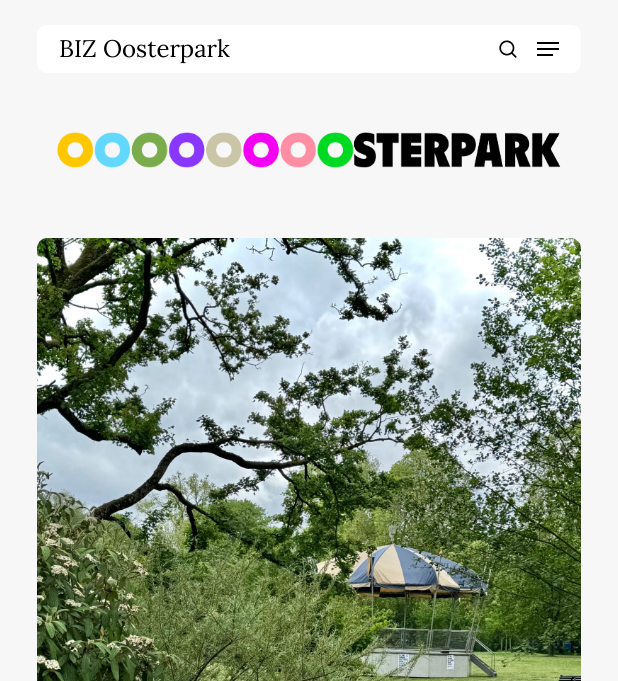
import math
import cairocffi as cairo

surface = cairo.ImageSurface(cairo.FORMAT_RGB24, 618, 681)
ctx = cairo.Context(surface)
options = cairo.FontOptions()
options.set_hint_metrics(cairo.HINT_METRICS_OFF)
options.set_hint_style(cairo.HINT_STYLE_NONE)
ctx.set_font_options(options)
ctx.set_miter_limit(4)


def rgb(r, g, b):
    ctx.set_source_rgb(r / 255, g / 255, b / 255)


def face(family, size, italic, bold):
    ctx.select_font_face(family, cairo.FONT_SLANT_ITALIC if italic else cairo.FONT_SLANT_NORMAL, cairo.FONT_WEIGHT_BOLD if bold else cairo.FONT_WEIGHT_NORMAL)
    ctx.set_font_size(size)


def label(x, y, s):
    ctx.move_to(x, y)
    ctx.show_text(s)


def rect(x, y, w, h):
    ctx.rectangle(x, y, w, h)
    ctx.fill()


def rrect(x, y, w, h, r):
    ctx.new_sub_path()
    for i, (u, v) in enumerate([(x + w - r, y + h - r), (x + r, y + h - r), (x + r, y + r), (x + w - r, y + r)]):
        ctx.arc(u, v, r, i * math.pi / 2, (i + 1) * math.pi / 2)
    ctx.close_path()


def image(path, x, y, w, h):
    ctx.save()
    ctx.set_source_surface(cairo.ImageSurface.create_from_png(path), x, y)
    ctx.rectangle(x, y, w, h)
    ctx.fill()
    ctx.restore()


rgb(247, 247, 247)
ctx.paint()
rgb(255, 255, 255)
rrect(37, 25, 544, 48, 10)
ctx.fill()
face('Lora', 24, 0, 0)
rgb(0, 0, 0)
label(59, 57, 'BIZ Oosterpark')
image('image0.png', 499, 40, 18, 18)
rect(537, 42, 22, 2)
rect(537, 54, 16, 2)
rect(537, 48, 22, 2)
image('image1.png', 57, 132, 504, 36)
image('image2.png', 37, 238, 544, 443)
surface.write_to_png('render.png')
